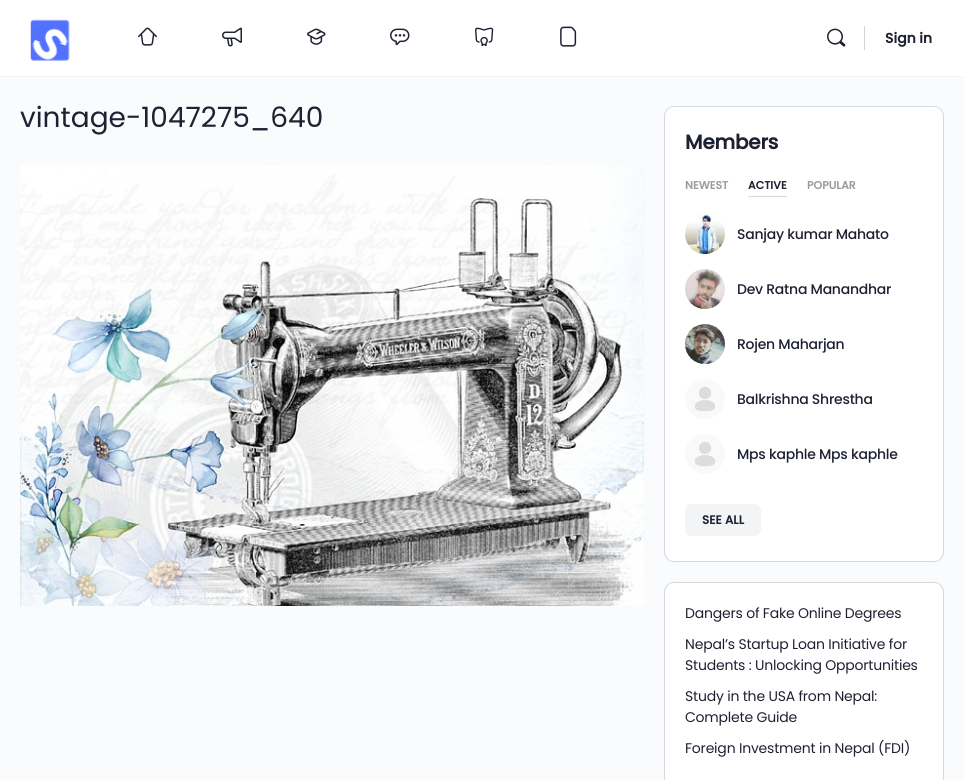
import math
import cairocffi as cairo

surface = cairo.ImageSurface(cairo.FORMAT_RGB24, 964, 780)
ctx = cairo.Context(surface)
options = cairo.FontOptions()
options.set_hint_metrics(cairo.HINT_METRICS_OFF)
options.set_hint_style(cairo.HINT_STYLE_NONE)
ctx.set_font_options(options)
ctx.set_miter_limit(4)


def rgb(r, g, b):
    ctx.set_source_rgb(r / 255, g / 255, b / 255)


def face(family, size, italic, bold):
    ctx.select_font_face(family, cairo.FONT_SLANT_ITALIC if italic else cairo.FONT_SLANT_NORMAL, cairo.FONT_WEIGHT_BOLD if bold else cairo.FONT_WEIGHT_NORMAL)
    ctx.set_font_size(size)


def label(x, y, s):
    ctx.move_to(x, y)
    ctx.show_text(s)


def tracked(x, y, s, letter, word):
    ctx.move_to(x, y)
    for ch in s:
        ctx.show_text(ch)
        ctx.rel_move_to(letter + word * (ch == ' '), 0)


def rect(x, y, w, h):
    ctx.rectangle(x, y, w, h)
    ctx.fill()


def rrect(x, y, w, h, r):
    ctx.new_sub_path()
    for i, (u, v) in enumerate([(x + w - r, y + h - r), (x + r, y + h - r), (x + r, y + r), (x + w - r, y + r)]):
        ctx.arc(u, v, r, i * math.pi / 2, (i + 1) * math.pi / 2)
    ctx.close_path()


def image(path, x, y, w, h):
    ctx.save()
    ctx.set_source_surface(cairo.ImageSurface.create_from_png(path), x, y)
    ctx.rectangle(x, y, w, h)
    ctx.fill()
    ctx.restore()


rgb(250, 251, 253)
ctx.paint()
rgb(242, 243, 246)
rect(0, 76, 964, 1)
rgb(255, 255, 255)
rect(0, 0, 964, 76)
image('image0.png', 30, 19, 40, 42)
image('image1.png', 138, 27, 19, 19)
image('image2.png', 222, 27, 20, 20)
image('image3.png', 307, 28, 19, 17)
image('image4.png', 390, 28, 20, 18)
image('image5.png', 475, 27, 19, 20)
image('image6.png', 560, 26, 17, 21)
image('image7.png', 827, 28, 19, 19)
rgb(210, 211, 214)
rect(864, 26, 1, 24)
face('Poppins', 14, 0, 1)
rgb(30, 33, 50)
label(885, 43, 'Sign in')
face('Poppins', 28, 0, 0)
label(20, 127, 'vintage-1047275_640')
image('image8.png', 20, 165, 624, 441)
rgb(255, 255, 255)
rrect(664.5, 106.5, 279, 455, 9.5)
ctx.fill_preserve()
rgb(214, 217, 221)
ctx.set_line_width(1)
ctx.stroke()
face('Poppins', 20, 0, 1)
rgb(30, 33, 50)
tracked(685, 149, 'Members', -0.25, 0)
face('Poppins', 11, 0, 1)
rgb(155, 156, 159)
label(685, 189, 'NEWEST')
rgb(214, 217, 221)
rect(748, 196, 39, 1)
rgb(30, 33, 50)
label(748, 189, 'ACTIVE')
rgb(155, 156, 159)
label(807, 189, 'POPULAR')
image('image9.png', 685, 214, 40, 40)
face('Poppins Medium', 14, 0, 0)
rgb(30, 33, 50)
tracked(737, 239, 'Sanjay kumar Mahato', -0.25, 0)
image('image10.png', 685, 269, 40, 40)
tracked(737, 294, 'Dev Ratna Manandhar', -0.25, 0)
image('image11.png', 685, 324, 40, 40)
tracked(737, 349, 'Rojen Maharjan', -0.25, 0)
image('image12.png', 685, 379, 40, 40)
tracked(737, 404, 'Balkrishna Shrestha', -0.25, 0)
image('image13.png', 685, 434, 40, 40)
tracked(737, 459, 'Mps kaphle Mps kaphle', -0.25, 0)
rgb(242, 244, 245)
rrect(685.5, 504.5, 75, 31, 6.5)
ctx.fill_preserve()
ctx.stroke()
face('Poppins', 12, 0, 1)
rgb(30, 33, 50)
label(702, 524, 'SEE ALL')
rgb(255, 255, 255)
rrect(664.5, 582.5, 279, 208, 9.5)
ctx.fill_preserve()
rgb(214, 217, 221)
ctx.stroke()
face('Poppins', 14, 0, 0)
rgb(30, 33, 50)
tracked(685, 618, 'Dangers of Fake Online Degrees', -0.2, 0)
tracked(685, 649, 'Nepal’s Startup Loan Initiative for', -0.2, 0)
tracked(685, 670, 'Students : Unlocking Opportunities', -0.2, 0)
tracked(685, 701, 'Study in the USA from Nepal:', -0.2, 0)
tracked(685, 722, 'Complete Guide', -0.2, 0)
tracked(685, 753, 'Foreign Investment in Nepal (FDI)', -0.2, 0)
surface.write_to_png('render.png')
